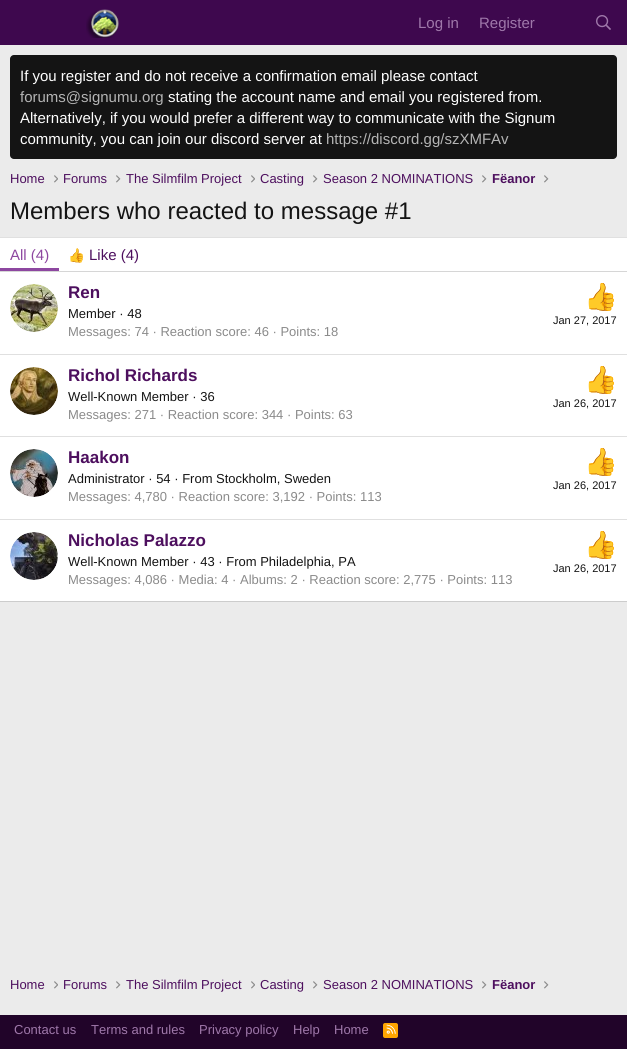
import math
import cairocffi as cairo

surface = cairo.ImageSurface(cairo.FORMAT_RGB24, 627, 1049)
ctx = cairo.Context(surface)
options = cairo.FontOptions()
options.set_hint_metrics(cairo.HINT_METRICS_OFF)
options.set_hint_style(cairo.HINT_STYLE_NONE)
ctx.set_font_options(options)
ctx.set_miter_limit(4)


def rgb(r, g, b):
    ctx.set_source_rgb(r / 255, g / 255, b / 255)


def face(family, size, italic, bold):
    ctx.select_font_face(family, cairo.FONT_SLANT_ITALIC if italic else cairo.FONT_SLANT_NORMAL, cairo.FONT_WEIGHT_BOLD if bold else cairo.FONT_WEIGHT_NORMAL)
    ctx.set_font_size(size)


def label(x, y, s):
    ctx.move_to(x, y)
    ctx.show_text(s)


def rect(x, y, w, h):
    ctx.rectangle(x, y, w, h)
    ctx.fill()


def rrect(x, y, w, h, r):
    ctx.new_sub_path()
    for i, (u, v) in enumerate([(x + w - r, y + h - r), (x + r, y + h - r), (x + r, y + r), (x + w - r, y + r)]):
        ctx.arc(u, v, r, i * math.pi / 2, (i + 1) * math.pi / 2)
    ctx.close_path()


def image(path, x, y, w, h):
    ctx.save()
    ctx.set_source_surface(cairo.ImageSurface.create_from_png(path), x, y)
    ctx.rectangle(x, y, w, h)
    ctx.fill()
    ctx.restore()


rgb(235, 235, 235)
ctx.paint()
rgb(62, 8, 78)
rect(0, 0, 627, 45)
image('image0.png', 86, 9, 33, 29)
face('Liberation Sans', 15, 0, 0)
rgb(159, 120, 170)
label(418, 28, 'Log in')
label(479, 28, 'Register')
image('image1.png', 596, 15, 15, 15)
rgb(20, 20, 20)
rrect(10, 55, 607, 104, 4)
ctx.fill()
rgb(254, 254, 254)
label(20, 81, 'If you register and do not receive a confirmation email please contact')
rgb(180, 180, 180)
label(20, 102, 'forums@signumu.org')
rgb(254, 254, 254)
label(168, 102, 'stating the account name and email you registered from.')
label(20, 123, 'Alternatively, if you would prefer a different way to communicate with the Signum')
label(20, 144, 'community, you can join our discord server at')
rgb(180, 180, 180)
label(326, 144, 'https://discord.gg/szXMFAv')
face('Liberation Sans', 13, 0, 0)
rgb(77, 15, 94)
label(10, 183, 'Home')
image('image2.png', 54, 175, 4, 8)
label(63, 183, 'Forums')
image('image3.png', 116, 175, 5, 8)
label(126, 183, 'The Silmfilm Project')
image('image2.png', 251, 175, 4, 8)
label(260, 183, 'Casting')
image('image3.png', 313, 175, 5, 8)
label(323, 183, 'Season 2 NOMINATIONS')
image('image3.png', 482, 175, 5, 8)
face('Liberation Sans', 13, 0, 1)
label(492, 183, 'Fëanor')
image('image3.png', 544, 175, 5, 8)
face('Liberation Sans', 24, 0, 0)
rgb(20, 20, 20)
label(10, 219, 'Members who reacted to message #1')
rgb(255, 255, 255)
rect(0, 238, 627, 363)
rgb(224, 224, 224)
rect(0, 237, 627, 1)
rgb(204, 204, 204)
rect(0, 601, 627, 1)
rgb(214, 214, 214)
rect(0, 271, 627, 1)
rgb(141, 71, 160)
rect(0, 268, 59, 3)
face('Liberation Sans', 15, 0, 0)
label(10, 260, 'All (4)')
image('image4.png', 70, 248, 13, 15)
rgb(77, 15, 94)
label(89, 260, 'Like (4)')
image('image5.png', 10, 284, 48, 48)
face('Liberation Sans', 17, 0, 1)
label(68, 298, 'Ren')
face('Liberation Sans', 13, 0, 0)
rgb(20, 20, 20)
label(68, 318, 'Member · 48')
image('image6.png', 588, 283, 26, 28)
face('Liberation Sans', 11, 0, 0)
label(553, 324, 'Jan 27, 2017')
face('Liberation Sans', 13, 0, 0)
rgb(138, 138, 138)
label(68, 336, 'Messages: 74 · Reaction score: 46 · Points: 18')
rgb(224, 224, 224)
rect(0, 354, 627, 1)
image('image7.png', 10, 367, 48, 48)
face('Liberation Sans', 17, 0, 1)
rgb(77, 15, 94)
label(68, 381, 'Richol Richards')
face('Liberation Sans', 13, 0, 0)
rgb(20, 20, 20)
label(68, 401, 'Well-Known Member · 36')
image('image6.png', 588, 366, 26, 28)
face('Liberation Sans', 11, 0, 0)
label(553, 407, 'Jan 26, 2017')
face('Liberation Sans', 13, 0, 0)
rgb(138, 138, 138)
label(68, 419, 'Messages: 271 · Reaction score: 344 · Points: 63')
rgb(224, 224, 224)
rect(0, 436, 627, 1)
image('image8.png', 10, 449, 48, 48)
face('Liberation Sans', 17, 0, 1)
rgb(77, 15, 94)
label(68, 463, 'Haakon')
face('Liberation Sans', 13, 0, 0)
rgb(20, 20, 20)
label(68, 483, 'Administrator · 54 · From Stockholm, Sweden')
image('image6.png', 588, 448, 26, 28)
face('Liberation Sans', 11, 0, 0)
label(553, 489, 'Jan 26, 2017')
face('Liberation Sans', 13, 0, 0)
rgb(138, 138, 138)
label(68, 501, 'Messages: 4,780 · Reaction score: 3,192 · Points: 113')
rgb(224, 224, 224)
rect(0, 519, 627, 1)
image('image9.png', 10, 532, 48, 48)
face('Liberation Sans', 17, 0, 1)
rgb(77, 15, 94)
label(68, 546, 'Nicholas Palazzo')
face('Liberation Sans', 13, 0, 0)
rgb(20, 20, 20)
label(68, 566, 'Well-Known Member · 43 · From Philadelphia, PA')
image('image6.png', 588, 531, 26, 28)
face('Liberation Sans', 11, 0, 0)
label(553, 572, 'Jan 26, 2017')
face('Liberation Sans', 13, 0, 0)
rgb(138, 138, 138)
label(68, 584, 'Messages: 4,086 · Media: 4 · Albums: 2 · Reaction score: 2,775 · Points: 113')
rgb(77, 15, 94)
label(10, 989, 'Home')
image('image2.png', 54, 981, 4, 8)
label(63, 989, 'Forums')
image('image3.png', 116, 981, 5, 8)
label(126, 989, 'The Silmfilm Project')
image('image2.png', 251, 981, 4, 8)
label(260, 989, 'Casting')
image('image3.png', 313, 981, 5, 8)
label(323, 989, 'Season 2 NOMINATIONS')
image('image3.png', 482, 981, 5, 8)
face('Liberation Sans', 13, 0, 1)
label(492, 989, 'Fëanor')
image('image3.png', 544, 981, 5, 8)
rgb(33, 4, 41)
rect(0, 1015, 627, 34)
face('Liberation Sans', 13, 0, 0)
rgb(159, 120, 170)
label(14, 1034, 'Contact us')
label(91, 1034, 'Terms and rules')
label(199, 1034, 'Privacy policy')
label(293, 1034, 'Help')
label(334, 1034, 'Home')
rgb(255, 165, 0)
rrect(383, 1023, 15, 15, 2)
ctx.fill()
image('image10.png', 386, 1024, 10, 10)
surface.write_to_png('render.png')
